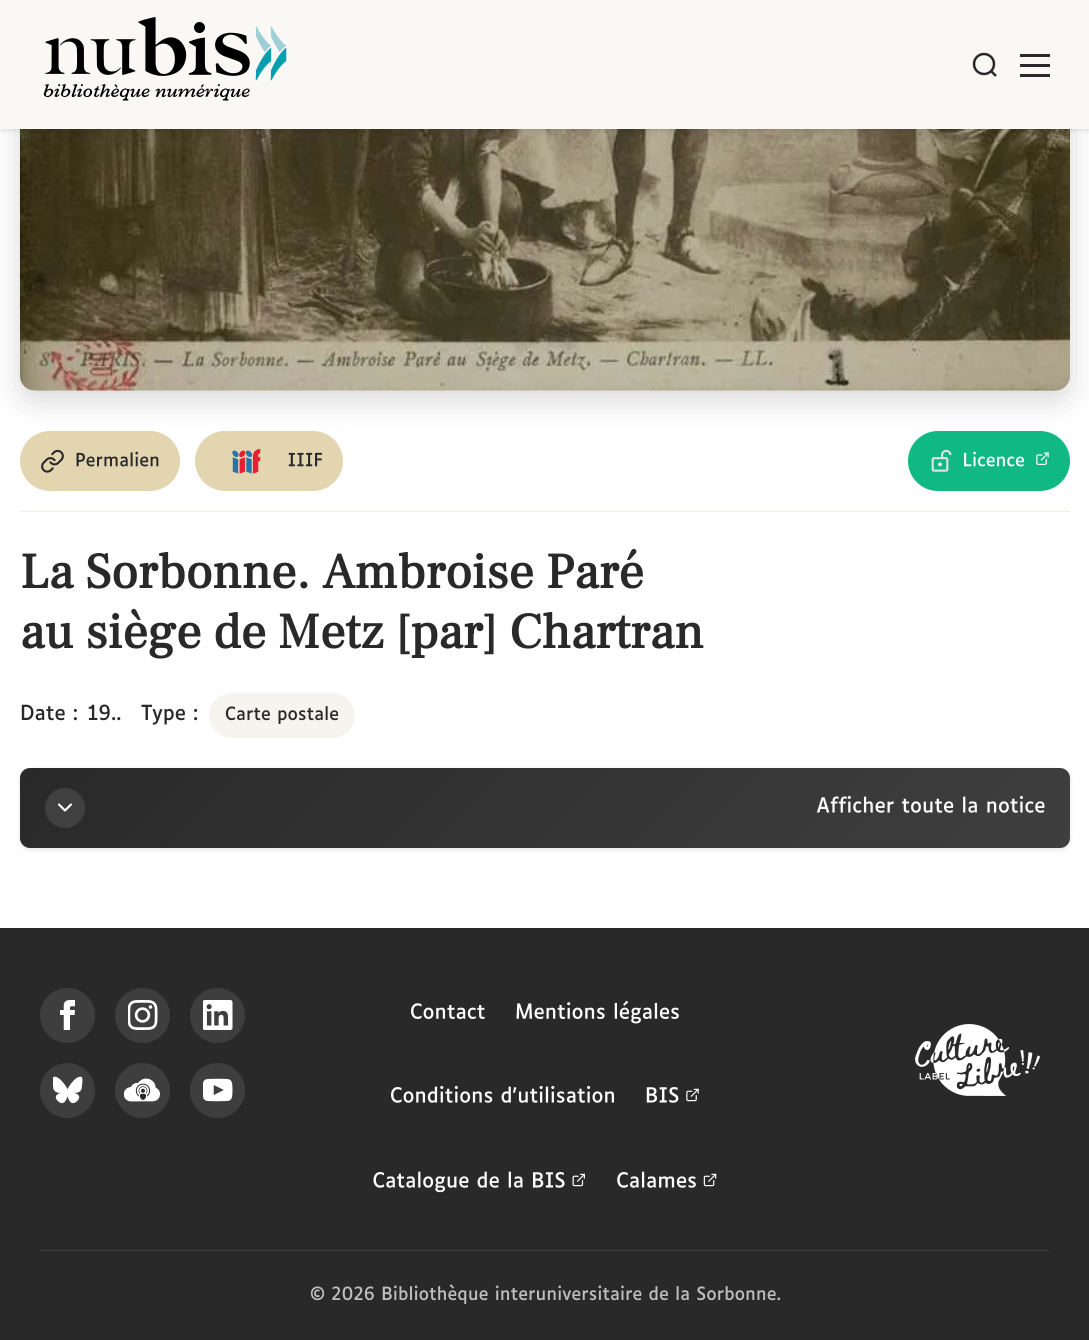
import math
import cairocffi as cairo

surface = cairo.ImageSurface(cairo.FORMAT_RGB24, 1089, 1340)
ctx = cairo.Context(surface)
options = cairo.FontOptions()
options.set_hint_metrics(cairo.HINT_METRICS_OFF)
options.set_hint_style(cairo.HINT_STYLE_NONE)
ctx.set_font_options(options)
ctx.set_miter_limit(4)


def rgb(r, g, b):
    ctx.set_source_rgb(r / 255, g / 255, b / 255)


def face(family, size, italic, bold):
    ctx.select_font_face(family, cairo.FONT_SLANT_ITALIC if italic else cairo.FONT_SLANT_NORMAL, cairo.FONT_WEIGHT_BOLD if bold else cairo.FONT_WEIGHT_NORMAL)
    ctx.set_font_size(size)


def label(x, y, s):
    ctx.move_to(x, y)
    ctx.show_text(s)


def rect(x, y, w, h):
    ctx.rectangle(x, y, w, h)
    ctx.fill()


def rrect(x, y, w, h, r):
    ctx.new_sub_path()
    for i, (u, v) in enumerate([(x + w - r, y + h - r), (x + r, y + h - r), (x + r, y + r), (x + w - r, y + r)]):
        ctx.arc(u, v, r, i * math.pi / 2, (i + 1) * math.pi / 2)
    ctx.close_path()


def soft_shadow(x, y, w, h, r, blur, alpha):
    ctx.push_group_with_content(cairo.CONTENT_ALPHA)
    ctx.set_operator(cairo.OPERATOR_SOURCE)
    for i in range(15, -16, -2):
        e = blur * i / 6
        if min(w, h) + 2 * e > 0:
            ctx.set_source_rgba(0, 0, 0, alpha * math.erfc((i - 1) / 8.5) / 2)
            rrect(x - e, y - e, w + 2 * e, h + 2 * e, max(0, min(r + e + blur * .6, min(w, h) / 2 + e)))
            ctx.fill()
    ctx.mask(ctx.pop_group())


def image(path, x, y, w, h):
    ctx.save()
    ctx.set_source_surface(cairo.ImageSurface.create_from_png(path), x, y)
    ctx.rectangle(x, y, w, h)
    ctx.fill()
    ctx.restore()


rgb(255, 255, 255)
ctx.paint()
rgb(227, 213, 176)
rrect(20, 431, 160, 60, 30)
ctx.fill()
rrect(195, 431, 148, 60, 30)
ctx.fill()
rgb(16, 185, 129)
rrect(908, 431, 162, 60, 30)
ctx.fill()
rgb(0, 0, 0)
soft_shadow(20, -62, 1050, 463, 15, 15.5, 0.15)
image('image1.png', 20, 129, 1050, 262)
soft_shadow(0, 3, 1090, 128, 0, 2.5, 0.1)
rgb(249, 248, 245)
rect(0, 0, 1089, 129)
image('image0.png', 43, 17, 244, 84)
ctx.arc(984, 64, 10, 0, 2 * math.pi)
rgb(40, 41, 40)
ctx.set_line_width(2.5)
ctx.stroke()
ctx.new_path()
ctx.move_to(996, 76)
ctx.line_to(991, 71)
ctx.stroke()
rect(1020, 54, 30, 3)
rect(1020, 64, 30, 3)
rect(1020, 74, 30, 3)
rgb(241, 238, 230)
rect(20, 511, 1050, 1)
image('image2.png', 41, 449, 23, 24)
image('image3.png', 76, 451, 83, 16)
image('image4.png', 232, 449, 29, 25)
image('image5.png', 288, 452, 35, 15)
image('image6.png', 931, 449, 21, 23)
image('image7.png', 964, 451, 60, 16)
image('image8.png', 1036, 452, 13, 13)
face('Frank Ruhl Libre', 50, 0, 1)
rgb(40, 41, 40)
label(20, 588, 'La Sorbonne. Ambroise Paré')
label(20, 648, 'au siège de Metz [par] Chartran')
image('image9.png', 21, 704, 56, 17)
image('image10.png', 88, 704, 33, 17)
image('image11.png', 141, 704, 57, 21)
rgb(246, 244, 239)
rrect(209, 693, 146, 45, 22.5)
ctx.fill()
image('image12.png', 225, 706, 114, 18)
rgb(0, 0, 0)
soft_shadow(20, 770, 1050, 80, 10, 2.5, 0.1)
gradient = cairo.LinearGradient(262, 525, 828, 1090)
gradient.add_color_stop_rgba(0, 0.157, 0.161, 0.157, 1)
gradient.add_color_stop_rgba(1, 0.243, 0.247, 0.243, 1)
ctx.set_source(gradient)
rrect(20, 768, 1050, 80, 10)
ctx.fill()
rgb(63, 64, 63)
ctx.arc(65, 808, 20, 0, 2 * math.pi)
ctx.fill()
ctx.new_path()
ctx.move_to(59, 804.5)
ctx.line_to(65, 810.5)
ctx.line_to(71, 804.5)
rgb(255, 255, 255)
ctx.set_line_width(2.1)
ctx.set_line_cap(cairo.LINE_CAP_ROUND)
ctx.set_line_join(cairo.LINE_JOIN_ROUND)
ctx.stroke()
image('image13.png', 816, 795, 229, 18)
rgb(40, 41, 40)
rect(0, 928, 1089, 412)
rgb(62, 62, 62)
ctx.arc(67.5, 1015.5, 27.5, 0, 2 * math.pi)
ctx.fill()
image('image14.png', 60, 1000, 15, 30)
ctx.arc(142.5, 1015.5, 27.5, 0, 2 * math.pi)
ctx.fill()
image('image15.png', 128, 1000, 30, 30)
ctx.arc(217.5, 1015.5, 27.5, 0, 2 * math.pi)
ctx.fill()
image('image16.png', 203, 1000, 30, 30)
ctx.arc(67.5, 1090.5, 27.5, 0, 2 * math.pi)
ctx.fill()
image('image17.png', 53, 1076, 30, 28)
ctx.arc(142.5, 1090.5, 27.5, 0, 2 * math.pi)
ctx.fill()
image('image18.png', 124, 1078, 36, 24)
ctx.arc(217.5, 1090.5, 27.5, 0, 2 * math.pi)
ctx.fill()
image('image19.png', 203, 1078, 30, 24)
image('image20.png', 411, 1003, 74, 16)
image('image21.png', 516, 1000, 163, 24)
image('image22.png', 391, 1085, 223, 18)
image('image23.png', 646, 1087, 33, 16)
image('image24.png', 686, 1088, 13, 14)
image('image25.png', 373, 1171, 192, 22)
image('image26.png', 572, 1173, 13, 14)
image('image27.png', 617, 1171, 79, 17)
image('image28.png', 703, 1173, 14, 14)
image('image29.png', 915, 1024, 125, 72)
rect(40, 1250, 1010, 1)
image('image30.png', 310, 1284, 471, 20)
surface.write_to_png('render.png')
